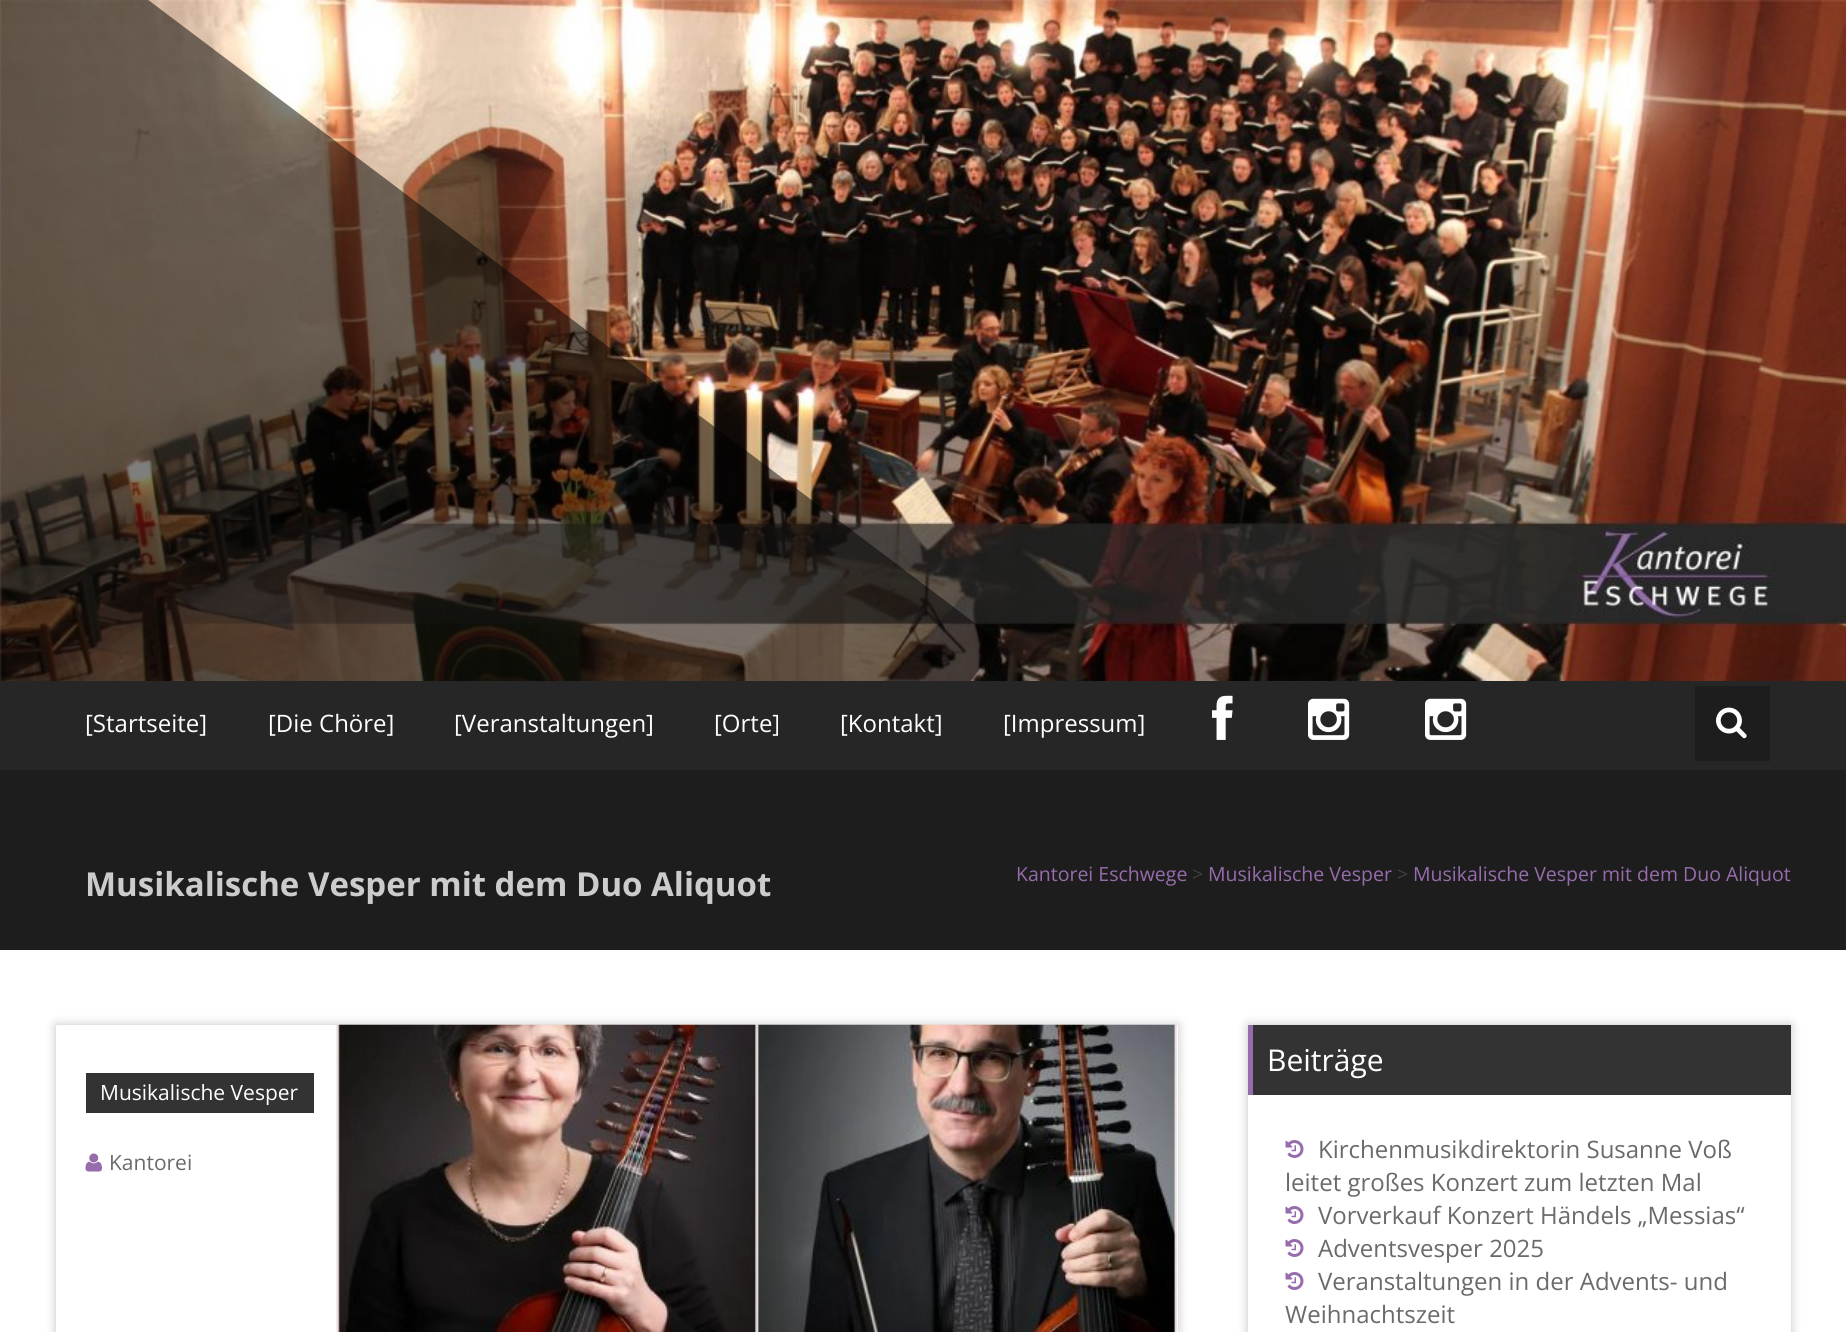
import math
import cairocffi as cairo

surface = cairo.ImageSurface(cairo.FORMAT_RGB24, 1846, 1332)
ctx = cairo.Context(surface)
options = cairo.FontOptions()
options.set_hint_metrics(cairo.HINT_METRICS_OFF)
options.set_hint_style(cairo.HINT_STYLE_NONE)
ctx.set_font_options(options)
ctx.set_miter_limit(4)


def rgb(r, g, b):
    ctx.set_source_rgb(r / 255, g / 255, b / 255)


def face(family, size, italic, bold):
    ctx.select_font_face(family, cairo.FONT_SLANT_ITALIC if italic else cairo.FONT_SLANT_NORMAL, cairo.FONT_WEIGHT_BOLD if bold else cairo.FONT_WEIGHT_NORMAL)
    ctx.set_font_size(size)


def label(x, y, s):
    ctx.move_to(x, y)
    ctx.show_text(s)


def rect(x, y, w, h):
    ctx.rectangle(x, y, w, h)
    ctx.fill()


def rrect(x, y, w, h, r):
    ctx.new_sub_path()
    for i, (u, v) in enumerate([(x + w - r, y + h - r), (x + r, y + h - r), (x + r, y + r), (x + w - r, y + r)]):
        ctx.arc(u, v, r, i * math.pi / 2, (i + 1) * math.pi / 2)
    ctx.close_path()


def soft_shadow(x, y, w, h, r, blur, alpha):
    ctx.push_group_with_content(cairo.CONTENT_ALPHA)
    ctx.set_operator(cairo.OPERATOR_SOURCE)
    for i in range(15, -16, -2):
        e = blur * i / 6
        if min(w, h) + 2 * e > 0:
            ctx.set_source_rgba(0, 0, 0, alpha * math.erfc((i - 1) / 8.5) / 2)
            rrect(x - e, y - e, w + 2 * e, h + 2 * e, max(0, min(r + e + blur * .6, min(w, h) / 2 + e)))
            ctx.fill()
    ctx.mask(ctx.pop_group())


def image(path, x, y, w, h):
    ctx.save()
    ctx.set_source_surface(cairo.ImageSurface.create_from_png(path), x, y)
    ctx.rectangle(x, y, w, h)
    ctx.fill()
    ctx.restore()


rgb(255, 255, 255)
ctx.paint()
image('image0.png', 0, 0, 1846, 681)
ctx.save()
ctx.rectangle(0, 0, 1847, 681)
ctx.clip()
ctx.set_source_rgba(0, 0, 0, 0.5)
ctx.new_path()
ctx.move_to(-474, -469)
ctx.line_to(1000, 642)
ctx.line_to(98, 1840)
ctx.line_to(-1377, 729)
ctx.close_path()
ctx.fill()
ctx.restore()
rgb(38, 38, 38)
rect(0, 681, 1846, 89)
face('Open Sans', 24, 0, 0)
rgb(255, 255, 255)
label(85, 732, '[Startseite]')
label(268, 732, '[Die Chöre]')
label(454, 732, '[Veranstaltungen]')
label(714, 732, '[Orte]')
label(840, 732, '[Kontakt]')
label(1003, 732, '[Impressum]')
image('image1.png', 1212, 695, 21, 45)
image('image2.png', 1308, 698, 42, 42)
image('image2.png', 1425, 698, 42, 42)
rgb(29, 29, 29)
rect(1695, 686, 75, 75)
image('image3.png', 1716, 707, 31, 32)
rect(0, 770, 1846, 180)
face('Open Sans', 33, 0, 1)
rgb(204, 204, 204)
label(85, 896, 'Musikalische Vesper mit dem Duo Aliquot')
face('Open Sans', 19.5, 0, 0)
rgb(151, 108, 172)
label(1016, 881, 'Kantorei Eschwege')
rgb(64, 64, 64)
label(1192, 881, '>')
rgb(151, 108, 172)
label(1208, 881, 'Musikalische Vesper')
rgb(64, 64, 64)
label(1397, 881, '>')
rgb(151, 108, 172)
label(1413, 881, 'Musikalische Vesper mit dem Duo Aliquot')
rgb(194, 194, 194)
soft_shadow(56, 1025, 1122, 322, 0, 5, 1)
rgb(255, 255, 255)
rect(56, 1025, 1122, 307)
rgb(51, 51, 51)
rect(86, 1073, 228, 40)
face('Open Sans', 21, 0, 0)
rgb(255, 255, 255)
label(100, 1100, 'Musikalische Vesper')
image('image4.png', 85, 1153, 17, 19)
rgb(106, 106, 106)
label(109, 1170, 'Kantorei')
image('image5.png', 336, 1024, 842, 308)
ctx.save()
ctx.set_fill_rule(cairo.FILL_RULE_EVEN_ODD)
ctx.new_path()
ctx.move_to(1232, 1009)
ctx.line_to(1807, 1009)
ctx.line_to(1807, 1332)
ctx.line_to(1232, 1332)
ctx.close_path()
ctx.move_to(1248, 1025)
ctx.line_to(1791, 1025)
ctx.line_to(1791, 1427)
ctx.line_to(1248, 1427)
ctx.close_path()
ctx.clip()
rgb(194, 194, 194)
soft_shadow(1248, 1025, 543, 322, 0, 5, 1)
ctx.restore()
rgb(51, 51, 51)
rect(1253, 1025, 538, 70)
rgb(151, 108, 172)
rect(1248, 1025, 5, 70)
face('Open Sans', 30, 0, 0)
rgb(255, 255, 255)
label(1267, 1071, 'Beiträge')
image('image6.png', 1285, 1140, 19, 18)
face('Open Sans', 24, 0, 0)
rgb(106, 106, 106)
label(1318, 1158, 'Kirchenmusikdirektorin Susanne Voß')
label(1285, 1191, 'leitet großes Konzert zum letzten Mal')
image('image6.png', 1285, 1206, 19, 18)
label(1318, 1224, 'Vorverkauf Konzert Händels „Messias“')
image('image6.png', 1285, 1239, 19, 18)
label(1318, 1257, 'Adventsvesper 2025')
image('image6.png', 1285, 1272, 19, 18)
label(1318, 1290, 'Veranstaltungen in der Advents- und')
label(1285, 1323, 'Weihnachtszeit')
surface.write_to_png('render.png')
